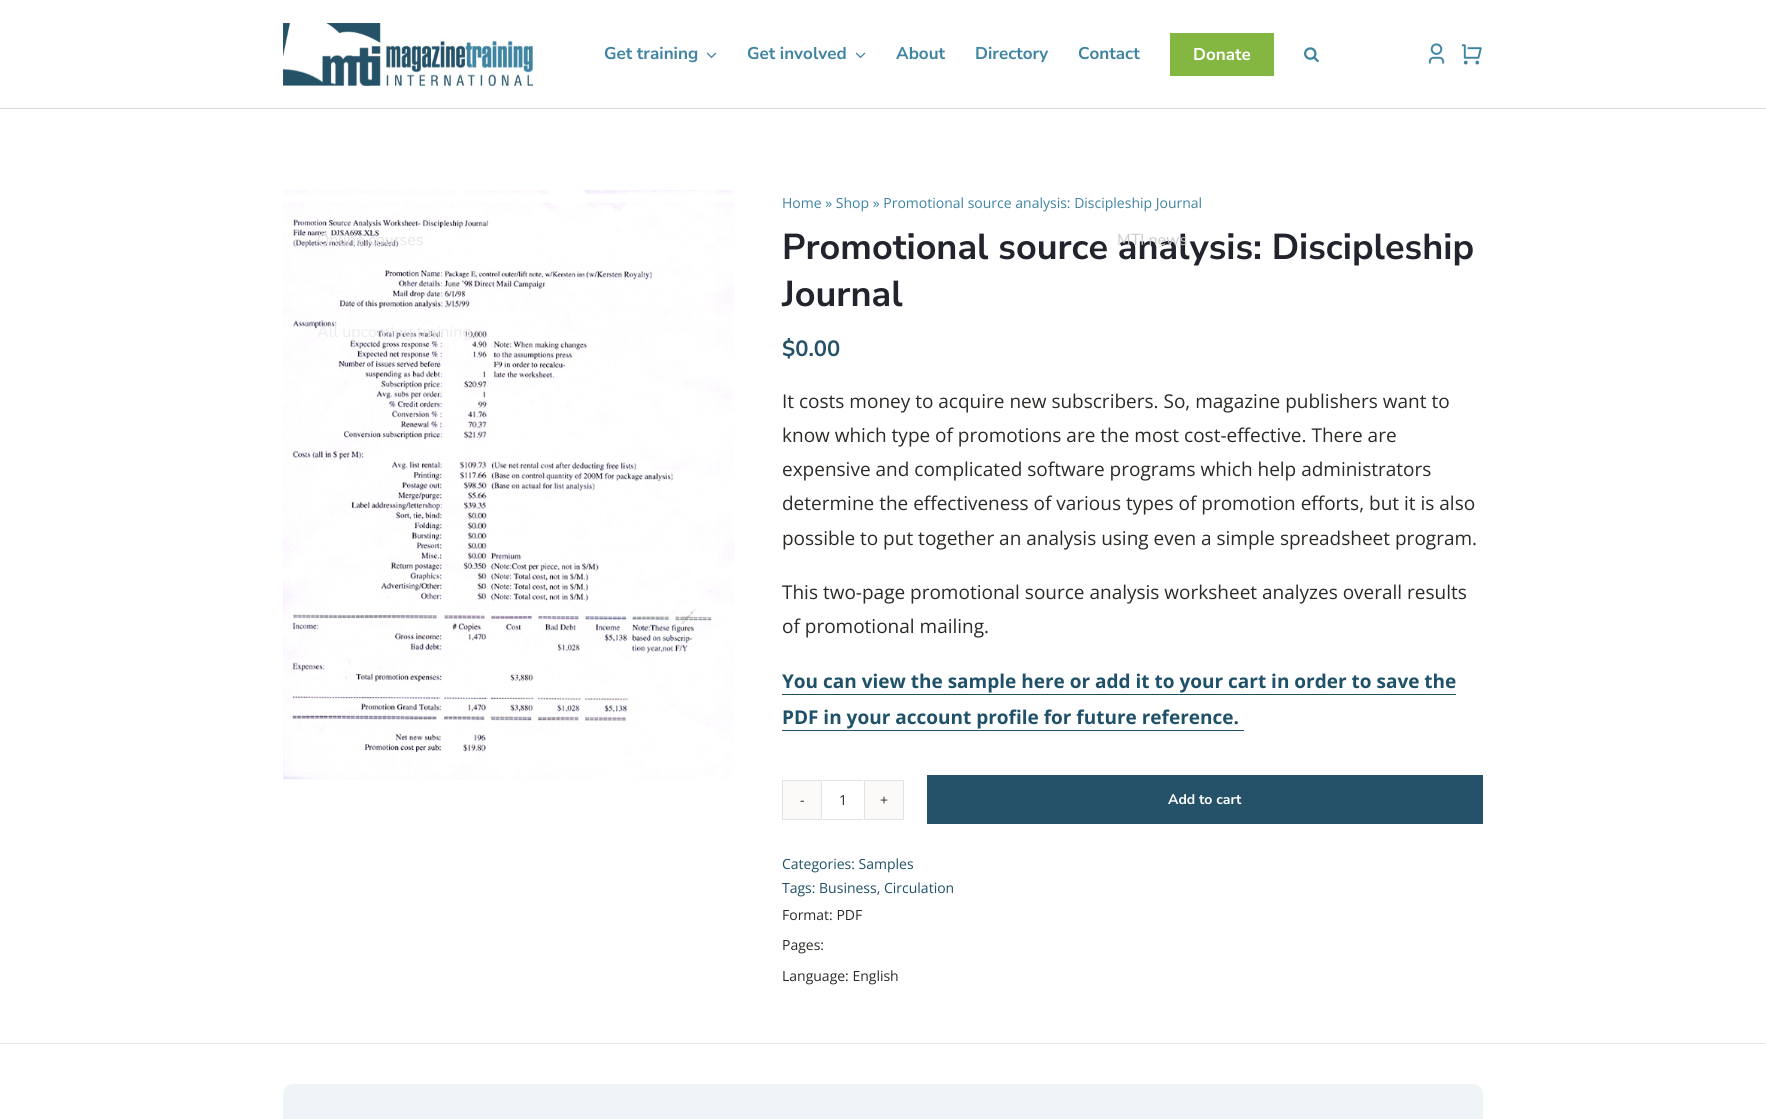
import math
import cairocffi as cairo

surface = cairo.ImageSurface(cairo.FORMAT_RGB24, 1766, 1119)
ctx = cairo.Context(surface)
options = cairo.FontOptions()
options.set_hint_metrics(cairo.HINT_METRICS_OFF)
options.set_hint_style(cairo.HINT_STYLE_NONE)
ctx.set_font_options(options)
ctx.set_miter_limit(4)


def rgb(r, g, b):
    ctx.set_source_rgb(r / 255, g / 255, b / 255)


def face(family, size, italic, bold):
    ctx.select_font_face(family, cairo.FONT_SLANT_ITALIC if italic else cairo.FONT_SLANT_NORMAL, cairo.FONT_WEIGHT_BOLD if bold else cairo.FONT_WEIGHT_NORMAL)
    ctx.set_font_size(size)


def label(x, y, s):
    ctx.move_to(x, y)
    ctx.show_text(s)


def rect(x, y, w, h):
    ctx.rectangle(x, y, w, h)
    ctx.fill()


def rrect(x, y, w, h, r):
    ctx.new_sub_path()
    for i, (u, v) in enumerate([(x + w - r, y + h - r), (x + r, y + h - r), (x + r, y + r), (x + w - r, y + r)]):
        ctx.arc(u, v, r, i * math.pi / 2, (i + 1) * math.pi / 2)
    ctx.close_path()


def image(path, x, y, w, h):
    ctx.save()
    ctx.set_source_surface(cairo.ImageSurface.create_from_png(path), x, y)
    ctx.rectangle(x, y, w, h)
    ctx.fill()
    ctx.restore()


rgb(255, 255, 255)
ctx.paint()
rgb(214, 216, 218)
rect(0, 108, 1766, 1)
image('image0.png', 283, 23, 250, 63)
image('image1.png', 1428, 43, 17, 21)
image('image2.png', 1461, 44, 21, 21)
face('Nunito Sans', 17, 0, 1)
rgb(63, 132, 162)
label(604, 59, 'Get training')
image('image3.png', 706, 52, 11, 7)
image('image5.png', 283, 190, 451, 590)
face('Nunito Sans', 16, 0, 0)
rgb(229, 227, 231)
label(317, 245, 'Online courses')
rgb(236, 235, 238)
label(317, 337, 'All upcoming training')
face('Nunito Sans', 36, 0, 1)
rgb(33, 36, 44)
label(782, 259, 'Promotional source analysis: Discipleship')
face('Nunito Sans', 16, 0, 0)
rgb(202, 203, 204)
label(1117, 245, 'MTI news')
face('Nunito Sans', 17, 0, 1)
rgb(63, 132, 162)
label(747, 59, 'Get involved')
image('image3.png', 855, 52, 11, 7)
label(896, 59, 'About')
label(975, 59, 'Directory')
label(1078, 59, 'Contact')
rgb(131, 183, 65)
rect(1170, 33, 104, 43)
rgb(255, 255, 255)
label(1193, 60, 'Donate')
image('image4.png', 1304, 47, 15, 16)
face('Open Sans', 14, 0, 0)
rgb(63, 132, 162)
label(782, 208, 'Home » Shop » Promotional source analysis: Discipleship Journal')
face('Nunito Sans', 36, 0, 1)
rgb(33, 36, 44)
label(782, 306, 'Journal')
face('Nunito Sans', 22, 0, 1)
rgb(37, 82, 104)
label(782, 356, '$0.00')
face('Open Sans', 19, 0, 0)
rgb(43, 44, 40)
label(782, 408, 'It costs money to acquire new subscribers. So, magazine publishers want to')
label(782, 442, 'know which type of promotions are the most cost-effective. There are')
label(782, 476, 'expensive and complicated software programs which help administrators')
label(782, 510, 'determine the effectiveness of various types of promotion efforts, but it is also')
label(782, 545, 'possible to put together an analysis using even a simple spreadsheet program.')
label(782, 599, 'This two-page promotional source analysis worksheet analyzes overall results')
label(782, 633, 'of promotional mailing.')
face('Open Sans', 19, 0, 1)
rgb(31, 81, 104)
label(782, 688, 'You can view the sample here or add it to your cart in order to save the')
rect(782, 694, 674, 1)
label(782, 724, 'PDF in your account profile for future reference.')
rect(782, 730, 462, 1)
rgb(251, 250, 249)
ctx.rectangle(782.5, 780.5, 39, 39)
ctx.fill_preserve()
rgb(226, 226, 226)
ctx.set_line_width(1)
ctx.stroke()
face('Open Sans', 14, 0, 0)
rgb(43, 44, 40)
label(800, 805, '-')
rgb(226, 226, 226)
rect(823, 780, 40, 1)
rect(823, 819, 40, 1)
rgb(43, 44, 40)
label(839, 805, '1')
rgb(251, 250, 249)
ctx.rectangle(864.5, 780.5, 39, 39)
ctx.fill_preserve()
rgb(226, 226, 226)
ctx.stroke()
rgb(43, 44, 40)
label(880, 805, '+')
rgb(37, 82, 104)
rect(927, 775, 556, 49)
face('Nunito Sans', 14, 0, 1)
rgb(255, 255, 255)
label(1168, 804, 'Add to cart')
face('Open Sans', 14, 0, 0)
rgb(31, 81, 104)
label(782, 869, 'Categories: Samples')
label(782, 893, 'Tags: Business, Circulation')
rgb(43, 44, 40)
label(782, 920, 'Format: PDF')
label(782, 950, 'Pages:')
label(782, 981, 'Language: English')
rgb(230, 230, 230)
rect(0, 1043, 1766, 1)
rgb(239, 244, 247)
rrect(283, 1084, 1200, 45, 10)
ctx.fill()
surface.write_to_png('render.png')
